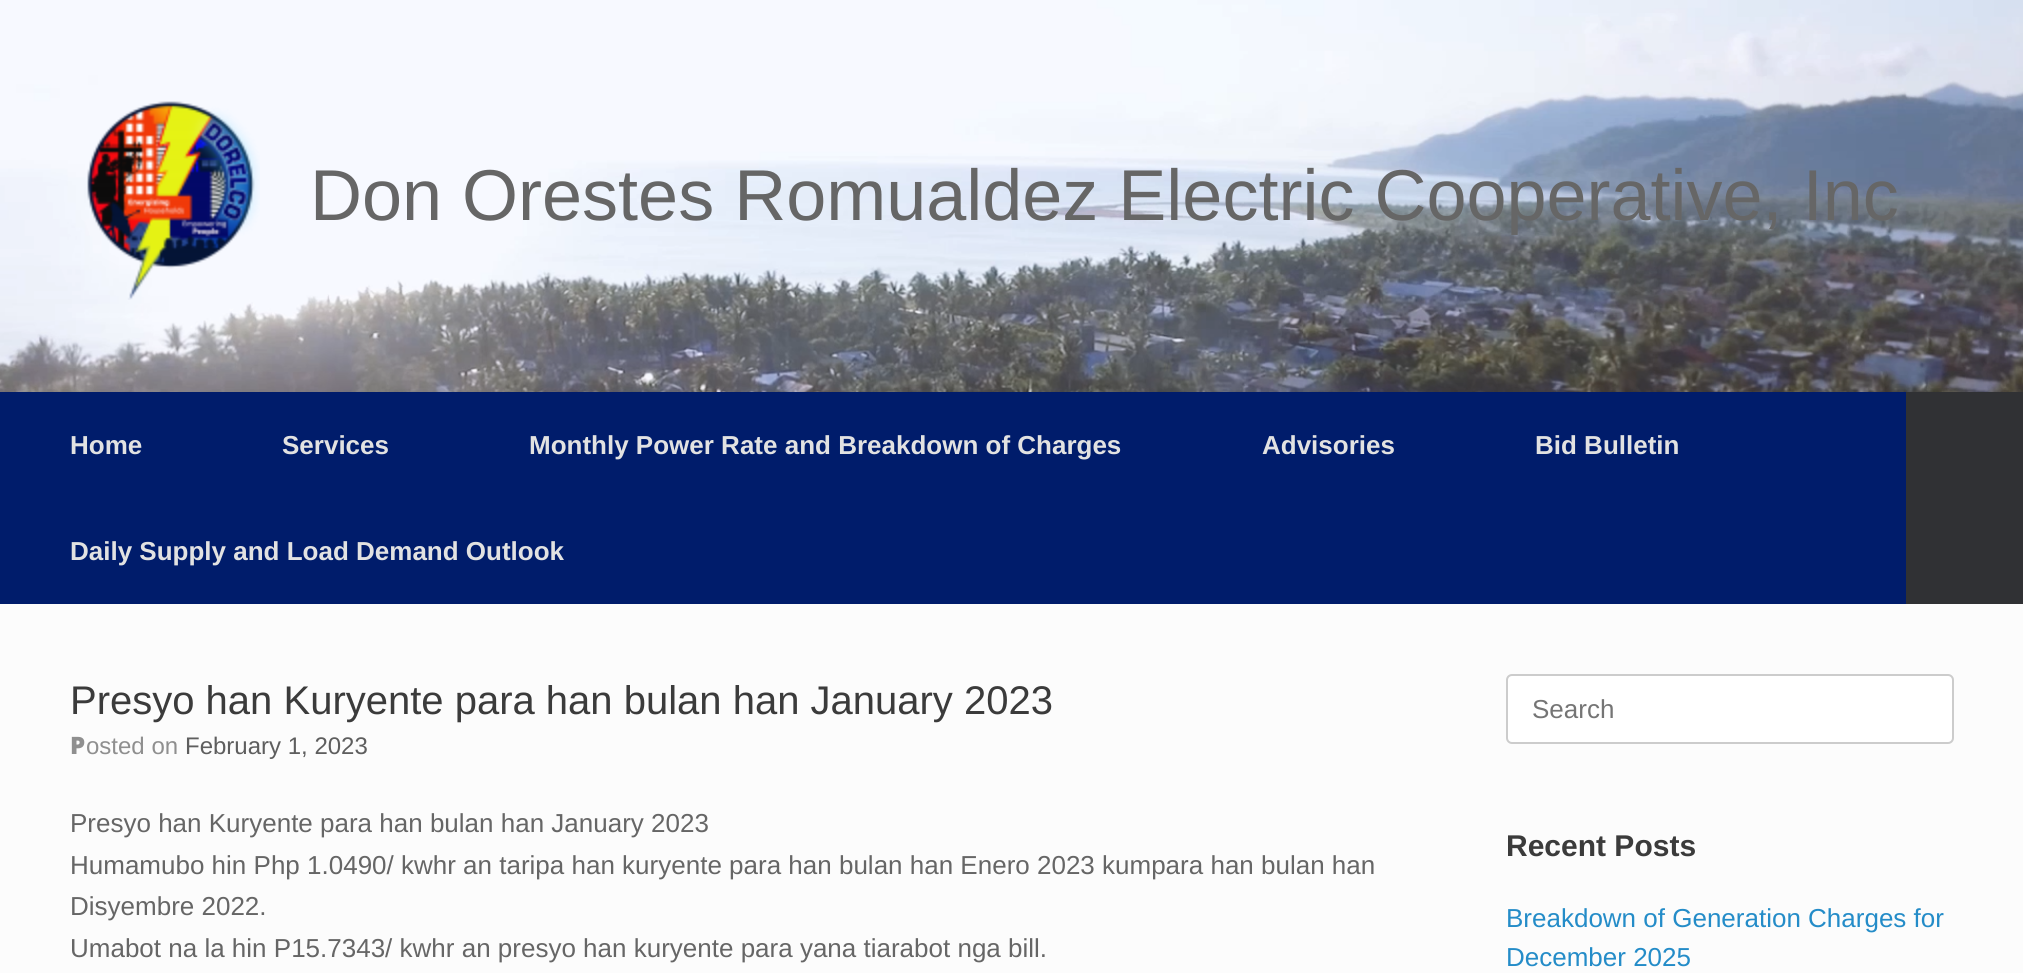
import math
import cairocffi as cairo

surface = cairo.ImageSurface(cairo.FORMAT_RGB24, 2023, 973)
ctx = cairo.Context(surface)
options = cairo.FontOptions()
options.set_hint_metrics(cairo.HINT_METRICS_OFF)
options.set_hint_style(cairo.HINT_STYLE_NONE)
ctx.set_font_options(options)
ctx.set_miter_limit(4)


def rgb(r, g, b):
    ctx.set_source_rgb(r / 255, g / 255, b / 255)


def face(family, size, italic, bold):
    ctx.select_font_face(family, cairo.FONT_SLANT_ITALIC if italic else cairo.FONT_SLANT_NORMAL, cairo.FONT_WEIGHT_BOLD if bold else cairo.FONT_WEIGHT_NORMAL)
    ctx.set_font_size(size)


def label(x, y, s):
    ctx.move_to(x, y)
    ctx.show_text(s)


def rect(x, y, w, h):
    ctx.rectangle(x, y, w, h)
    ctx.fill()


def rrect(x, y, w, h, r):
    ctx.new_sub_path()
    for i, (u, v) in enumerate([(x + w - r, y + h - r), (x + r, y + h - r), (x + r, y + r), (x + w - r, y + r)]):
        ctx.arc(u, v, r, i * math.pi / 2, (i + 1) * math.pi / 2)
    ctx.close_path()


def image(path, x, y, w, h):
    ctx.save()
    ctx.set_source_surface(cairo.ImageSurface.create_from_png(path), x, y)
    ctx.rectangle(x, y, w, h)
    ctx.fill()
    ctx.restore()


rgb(255, 255, 255)
ctx.paint()
image('image0.png', 0, 0, 2023, 392)
image('image1.png', 87, 101, 173, 199)
face('Liberation Sans', 72, 0, 0)
rgb(102, 102, 102)
label(310, 220, 'Don Orestes Romualdez Electric Cooperative, Inc')
rgb(0, 28, 107)
rect(0, 392, 1906, 212)
face('Liberation Sans', 26, 0, 1)
rgb(226, 226, 226)
label(70, 454, 'Home')
label(282, 454, 'Services')
label(529, 454, 'Monthly Power Rate and Breakdown of Charges')
label(1262, 454, 'Advisories')
label(1535, 454, 'Bid Bulletin')
label(70, 560, 'Daily Supply and Load Demand Outlook')
rgb(48, 49, 52)
rect(1906, 392, 117, 212)
rgb(252, 252, 252)
rect(0, 604, 2023, 369)
face('Liberation Sans', 40, 0, 0)
rgb(59, 59, 59)
label(70, 714, 'Presyo han Kuryente para han bulan han January 2023')
face('Noto Sans Black', 24, 0, 0)
rgb(143, 143, 143)
label(70, 754, 'P')
face('Liberation Sans', 24, 0, 0)
label(86, 754, 'osted on')
rgb(94, 94, 94)
label(185, 754, 'February 1, 2023')
face('Liberation Sans', 26, 0, 0)
rgb(102, 102, 102)
label(70, 832, 'Presyo han Kuryente para han bulan han January 2023')
label(70, 874, 'Humamubo hin Php 1.0490/ kwhr an taripa han kuryente para han bulan han Enero 2023 kumpara han bulan han')
label(70, 915, 'Disyembre 2022.')
label(70, 957, 'Umabot na la hin P15.7343/ kwhr an presyo han kuryente para yana tiarabot nga bill.')
rgb(255, 255, 255)
rrect(1507, 675, 446, 68, 5)
ctx.fill_preserve()
rgb(204, 204, 204)
ctx.stroke()
rgb(117, 117, 117)
label(1532, 718, 'Search')
face('Liberation Sans', 30, 0, 1)
rgb(59, 59, 59)
label(1506, 856, 'Recent Posts')
face('Liberation Sans', 26, 0, 0)
rgb(36, 140, 200)
label(1506, 927, 'Breakdown of Generation Charges for')
label(1506, 966, 'December 2025')
surface.write_to_png('render.png')
